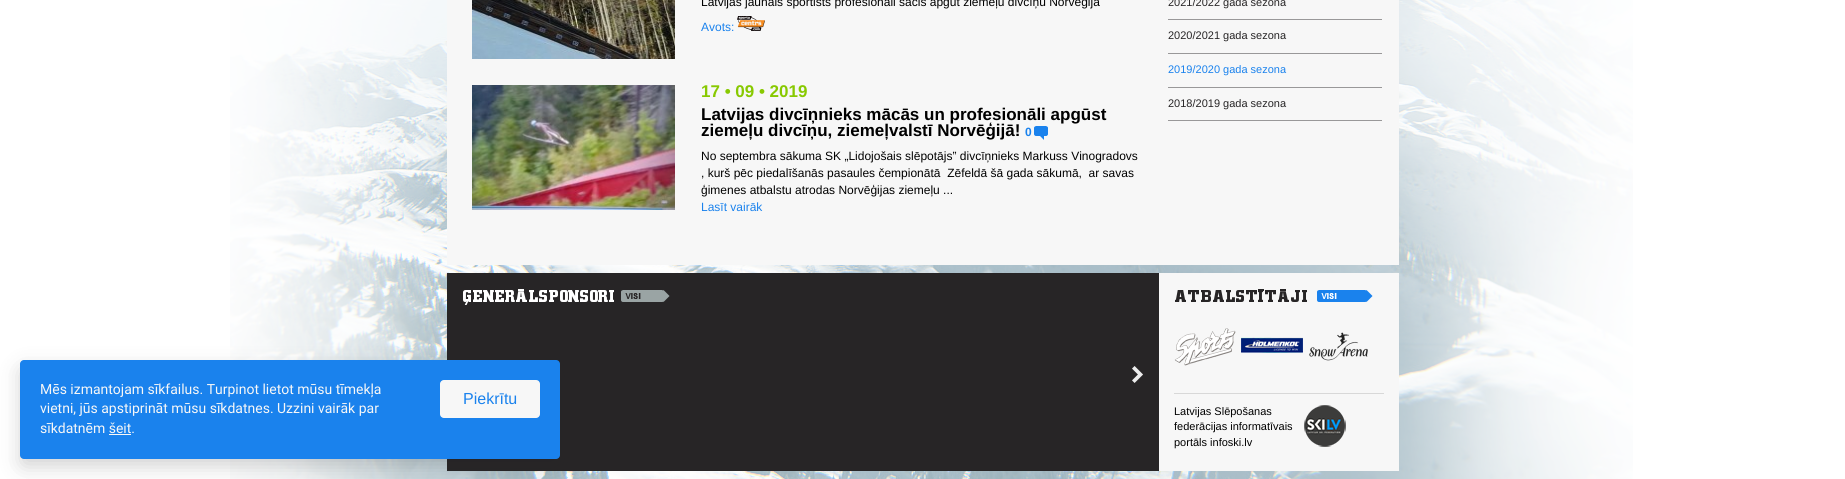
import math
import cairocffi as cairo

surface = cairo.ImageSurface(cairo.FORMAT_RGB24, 1845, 479)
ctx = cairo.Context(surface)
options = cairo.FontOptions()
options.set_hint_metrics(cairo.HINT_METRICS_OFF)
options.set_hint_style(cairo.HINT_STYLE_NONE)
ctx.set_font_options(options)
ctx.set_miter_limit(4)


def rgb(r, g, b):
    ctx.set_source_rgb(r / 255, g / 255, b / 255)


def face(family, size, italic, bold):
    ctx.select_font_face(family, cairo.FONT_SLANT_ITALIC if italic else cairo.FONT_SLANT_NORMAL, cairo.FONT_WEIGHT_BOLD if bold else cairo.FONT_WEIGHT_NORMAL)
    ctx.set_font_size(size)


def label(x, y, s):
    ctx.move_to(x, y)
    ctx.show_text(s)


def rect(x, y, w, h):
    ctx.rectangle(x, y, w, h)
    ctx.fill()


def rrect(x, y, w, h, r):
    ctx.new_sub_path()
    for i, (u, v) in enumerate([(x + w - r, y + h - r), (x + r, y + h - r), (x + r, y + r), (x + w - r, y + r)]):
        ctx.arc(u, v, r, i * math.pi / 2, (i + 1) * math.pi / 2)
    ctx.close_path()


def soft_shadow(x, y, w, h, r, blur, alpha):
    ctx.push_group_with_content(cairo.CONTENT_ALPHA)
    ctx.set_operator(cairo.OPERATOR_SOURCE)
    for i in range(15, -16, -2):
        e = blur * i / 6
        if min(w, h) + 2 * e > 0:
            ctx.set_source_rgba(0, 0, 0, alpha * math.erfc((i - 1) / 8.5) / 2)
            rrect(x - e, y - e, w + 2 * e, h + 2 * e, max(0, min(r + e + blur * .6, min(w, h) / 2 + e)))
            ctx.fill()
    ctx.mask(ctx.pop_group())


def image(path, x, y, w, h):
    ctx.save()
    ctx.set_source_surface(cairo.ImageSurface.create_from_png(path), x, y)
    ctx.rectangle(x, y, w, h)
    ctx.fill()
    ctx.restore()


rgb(255, 255, 255)
ctx.paint()
image('image0.png', 230, 0, 1403, 479)
rgb(39, 37, 38)
rect(447, 273, 712, 198)
rgb(36, 36, 38)
soft_shadow(20, 368, 540, 99, 4, 10, 0.2)
rgb(26, 130, 237)
rrect(20, 360, 540, 99, 4)
ctx.fill()
face('Roboto', 14, 0, 0)
rgb(247, 247, 247)
label(40, 394, 'Mēs izmantojam sīkfailus. Turpinot lietot mūsu tīmekļa')
label(40, 413, 'vietni, jūs apstiprināt mūsu sīkdatnes. Uzzini vairāk par')
label(40, 433, 'sīkdatnēm šeit.')
rect(109, 434, 22, 1)
rrect(440, 380, 100, 38, 4)
ctx.fill()
face('Liberation Sans', 16, 0, 0)
rgb(26, 130, 237)
label(463, 404, 'Piekrītu')
rgb(247, 247, 247)
rect(447, 0, 952, 265)
image('image1.png', 472, 0, 203, 59)
face('Liberation Sans', 12, 0, 0)
rgb(0, 0, 0)
label(701, 6, 'Latvijas jaunais sportists profesionāli sācis apgūt ziemeļu divcīņu Norvēģijā')
rgb(26, 130, 237)
label(701, 31, 'Avots:')
image('image2.png', 737, 16, 28, 15)
image('image3.png', 472, 85, 203, 125)
face('Liberation Sans', 17, 0, 1)
rgb(136, 201, 1)
label(701, 97, '17 • 09 • 2019')
rgb(0, 0, 0)
label(701, 120, 'Latvijas divcīņnieks mācās un profesionāli apgūst')
label(701, 136, 'ziemeļu divcīņu, ziemeļvalstī Norvēģijā!')
face('Liberation Sans', 12, 0, 1)
rgb(26, 130, 237)
label(1025, 136, '0')
image('image4.png', 1034, 126, 14, 14)
face('Liberation Sans', 12, 0, 0)
rgb(0, 0, 0)
label(701, 160, 'No septembra sākuma SK „Lidojošais slēpotājs” divcīņnieks Markuss Vinogradovs')
label(701, 177, ', kurš pēc piedalīšanās pasaules čempionātā  Zēfeldā šā gada sākumā,  ar savas')
label(701, 194, 'ģimenes atbalstu atrodas Norvēģijas ziemeļu ...')
rgb(26, 130, 237)
label(701, 211, 'Lasīt vairāk')
rgb(153, 152, 153)
rect(1168, 19, 214, 1)
face('Liberation Sans', 11, 0, 0)
rgb(39, 37, 38)
label(1168, 6, '2021/2022 gada sezona')
rgb(153, 152, 153)
rect(1168, 53, 214, 1)
rgb(39, 37, 38)
label(1168, 39, '2020/2021 gada sezona')
rgb(153, 152, 153)
rect(1168, 87, 214, 1)
rgb(26, 130, 237)
label(1168, 73, '2019/2020 gada sezona')
rgb(153, 152, 153)
rect(1168, 120, 214, 1)
rgb(39, 37, 38)
label(1168, 107, '2018/2019 gada sezona')
rgb(247, 247, 247)
rect(1159, 273, 240, 198)
image('image5.png', 463, 289, 151, 16)
image('image6.png', 621, 290, 49, 12)
image('image7.png', 1132, 366, 11, 17)
image('image8.png', 1175, 289, 132, 13)
image('image9.png', 1317, 290, 56, 12)
image('image10.png', 1174, 328, 62, 38)
image('image11.png', 1241, 337, 62, 16)
image('image12.png', 1309, 332, 59, 29)
rgb(216, 216, 216)
rect(1174, 393, 210, 1)
rgb(0, 0, 0)
label(1174, 415, 'Latvijas Slēpošanas')
label(1174, 430, 'federācijas informatīvais')
label(1174, 446, 'portāls infoski.lv')
image('image13.png', 1304, 405, 42, 42)
surface.write_to_png('render.png')
